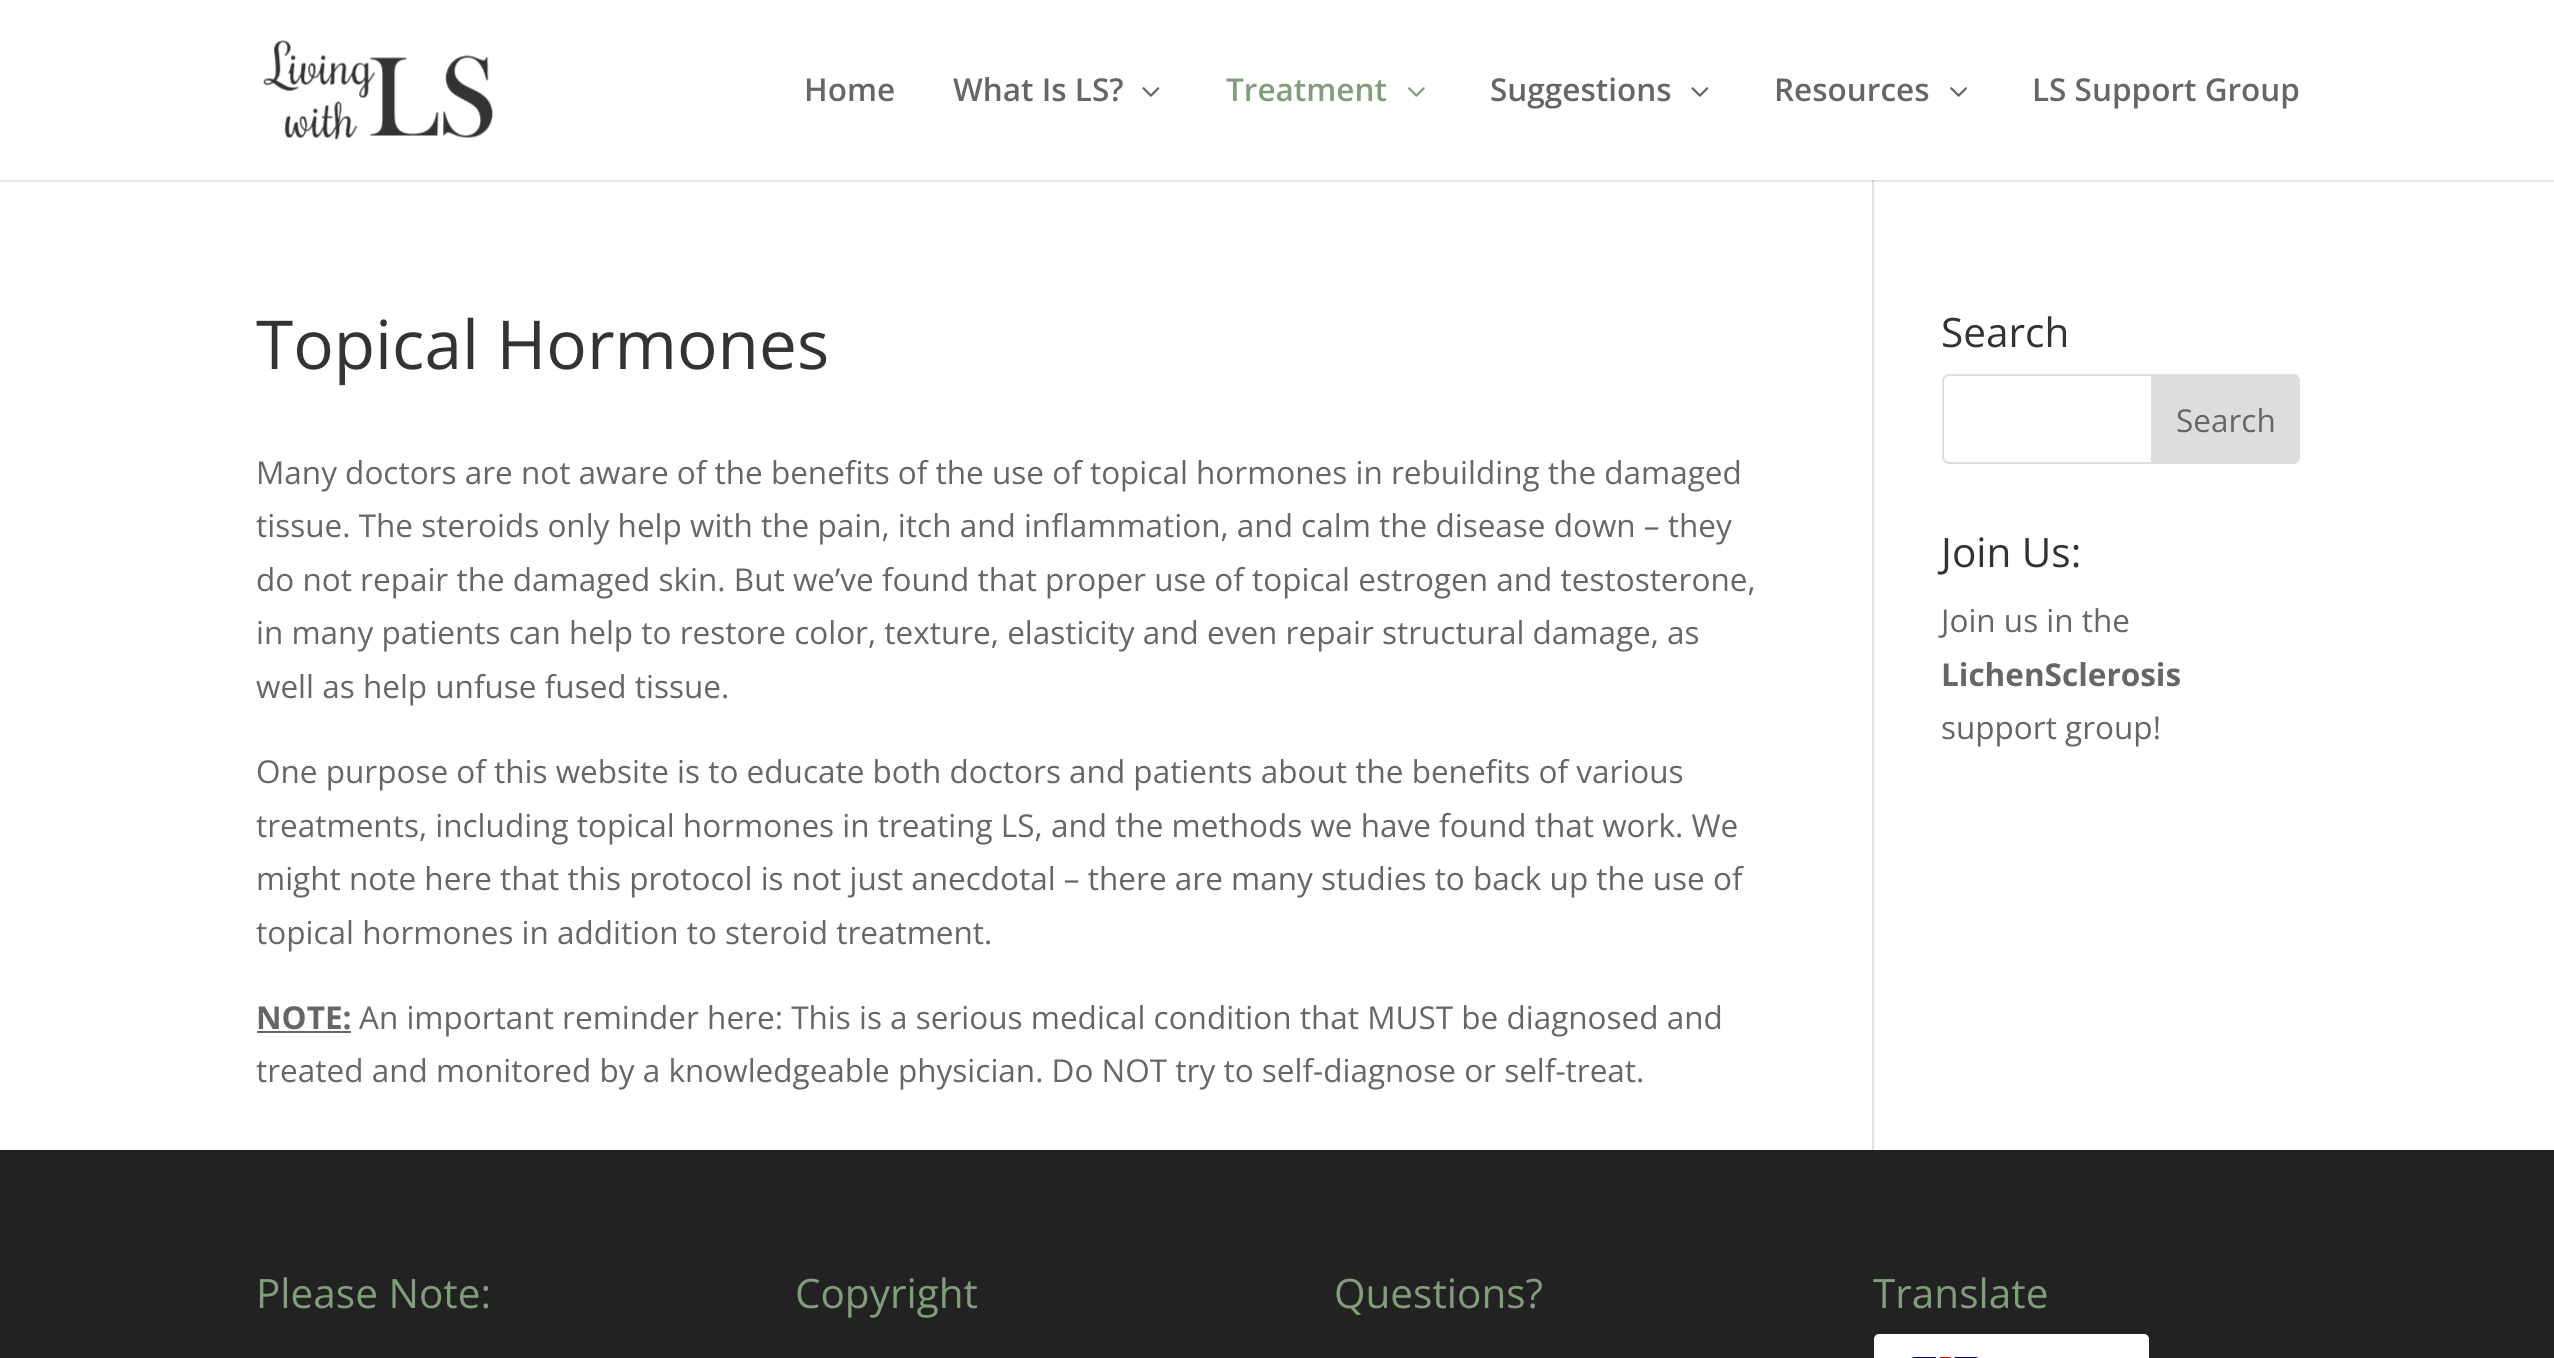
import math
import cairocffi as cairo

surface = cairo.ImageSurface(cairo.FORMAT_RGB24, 2554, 1358)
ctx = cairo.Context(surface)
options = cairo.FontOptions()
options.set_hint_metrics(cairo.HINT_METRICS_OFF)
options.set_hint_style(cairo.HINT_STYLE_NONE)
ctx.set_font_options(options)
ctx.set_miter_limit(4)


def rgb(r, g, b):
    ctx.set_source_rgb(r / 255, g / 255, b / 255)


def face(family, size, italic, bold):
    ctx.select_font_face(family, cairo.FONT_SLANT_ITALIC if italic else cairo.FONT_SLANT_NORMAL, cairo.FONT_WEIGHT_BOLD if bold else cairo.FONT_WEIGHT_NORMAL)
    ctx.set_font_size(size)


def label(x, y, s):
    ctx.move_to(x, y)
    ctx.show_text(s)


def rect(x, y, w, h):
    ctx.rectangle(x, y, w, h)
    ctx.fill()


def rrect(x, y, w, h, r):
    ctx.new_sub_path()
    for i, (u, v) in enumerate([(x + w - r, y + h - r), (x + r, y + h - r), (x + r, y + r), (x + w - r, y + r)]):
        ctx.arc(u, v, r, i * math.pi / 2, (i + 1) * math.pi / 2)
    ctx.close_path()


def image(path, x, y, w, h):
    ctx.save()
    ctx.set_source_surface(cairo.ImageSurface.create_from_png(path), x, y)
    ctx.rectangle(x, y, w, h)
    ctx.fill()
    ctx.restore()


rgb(255, 255, 255)
ctx.paint()
rgb(230, 230, 230)
rect(0, 180, 2554, 2)
image('image0.png', 263, 40, 231, 100)
face('Open Sans SemiBold', 31.5, 0, 0)
rgb(102, 102, 102)
label(804, 101, 'Home')
label(953, 101, 'What Is LS?')
image('image1.png', 1142, 87, 18, 10)
rgb(129, 158, 123)
label(1226, 101, 'Treatment')
image('image2.png', 1408, 87, 17, 10)
rgb(102, 102, 102)
label(1490, 101, 'Suggestions')
image('image1.png', 1691, 87, 18, 10)
label(1774, 101, 'Resources')
image('image3.png', 1950, 87, 17, 10)
label(2032, 101, 'LS Support Group')
rgb(226, 226, 226)
rect(1872, 180, 2, 970)
rgb(203, 203, 203)
rect(1872, 180, 2, 2)
face('Open Sans', 67.5, 0, 0)
rgb(51, 51, 51)
label(256, 369, 'Topical Hormones')
face('Open Sans', 31.5, 0, 0)
rgb(102, 102, 102)
label(256, 484, 'Many doctors are not aware of the benefits of the use of topical hormones in rebuilding the damaged')
label(256, 537, 'tissue. The steroids only help with the pain, itch and inflammation, and calm the disease down – they')
label(256, 591, 'do not repair the damaged skin. But we’ve found that proper use of topical estrogen and testosterone,')
label(256, 644, 'in many patients can help to restore color, texture, elasticity and even repair structural damage, as')
label(256, 698, 'well as help unfuse fused tissue.')
label(256, 783, 'One purpose of this website is to educate both doctors and patients about the benefits of various')
label(256, 837, 'treatments, including topical hormones in treating LS, and the methods we have found that work. We')
label(256, 890, 'might note here that this protocol is not just anecdotal – there are many studies to back up the use of')
label(256, 944, 'topical hormones in addition to steroid treatment.')
face('Open Sans', 31.5, 0, 1)
label(256, 1029, 'NOTE:')
rect(257, 1031, 94, 2)
face('Open Sans', 31.5, 0, 0)
label(359, 1029, 'An important reminder here: This is a serious medical condition that MUST be diagnosed and')
label(256, 1082, 'treated and monitored by a knowledgeable physician. Do NOT try to self-diagnose or self-treat.')
face('Open Sans', 40.5, 0, 0)
rgb(51, 51, 51)
label(1941, 347, 'Search')
rrect(1943, 375, 356, 88, 6)
rgb(221, 221, 221)
ctx.stroke()
ctx.new_path()
ctx.move_to(2152, 375)
ctx.line_to(2293, 375)
ctx.curve_to(2296.5, 375, 2299, 377.5, 2299, 381)
ctx.line_to(2299, 457)
ctx.curve_to(2299, 460.5, 2296.5, 463, 2293, 463)
ctx.line_to(2152, 463)
ctx.close_path()
ctx.fill_preserve()
ctx.stroke()
face('Open Sans', 31.5, 0, 0)
rgb(102, 102, 102)
label(2176, 432, 'Search')
face('Open Sans', 40.5, 0, 0)
rgb(51, 51, 51)
label(1941, 567, 'Join Us:')
face('Open Sans', 31.5, 0, 0)
rgb(102, 102, 102)
label(1941, 632, 'Join us in the')
face('Open Sans', 31.5, 0, 1)
label(1941, 686, 'LichenSclerosis')
face('Open Sans', 31.5, 0, 0)
label(1941, 739, 'support group!')
rgb(34, 34, 34)
rect(0, 1150, 2554, 208)
face('Open Sans', 40.5, 0, 0)
rgb(129, 158, 123)
label(256, 1308, 'Please Note:')
label(795, 1308, 'Copyright')
label(1334, 1308, 'Questions?')
label(1873, 1308, 'Translate')
rgb(255, 255, 255)
rrect(1874, 1334, 275, 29, 5)
ctx.fill()
image('image4.png', 1911, 1357, 68, 1)
surface.write_to_png('render.png')
